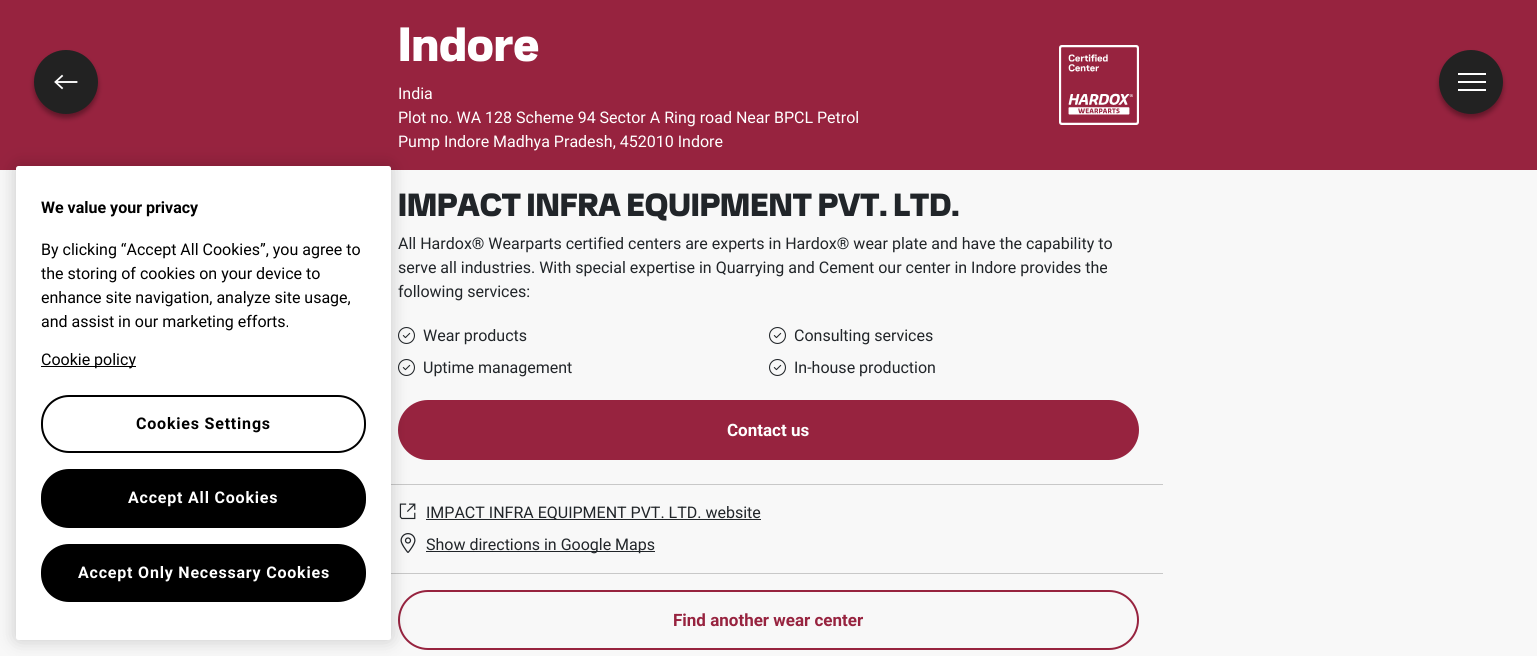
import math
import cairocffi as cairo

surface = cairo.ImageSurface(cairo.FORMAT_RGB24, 1537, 656)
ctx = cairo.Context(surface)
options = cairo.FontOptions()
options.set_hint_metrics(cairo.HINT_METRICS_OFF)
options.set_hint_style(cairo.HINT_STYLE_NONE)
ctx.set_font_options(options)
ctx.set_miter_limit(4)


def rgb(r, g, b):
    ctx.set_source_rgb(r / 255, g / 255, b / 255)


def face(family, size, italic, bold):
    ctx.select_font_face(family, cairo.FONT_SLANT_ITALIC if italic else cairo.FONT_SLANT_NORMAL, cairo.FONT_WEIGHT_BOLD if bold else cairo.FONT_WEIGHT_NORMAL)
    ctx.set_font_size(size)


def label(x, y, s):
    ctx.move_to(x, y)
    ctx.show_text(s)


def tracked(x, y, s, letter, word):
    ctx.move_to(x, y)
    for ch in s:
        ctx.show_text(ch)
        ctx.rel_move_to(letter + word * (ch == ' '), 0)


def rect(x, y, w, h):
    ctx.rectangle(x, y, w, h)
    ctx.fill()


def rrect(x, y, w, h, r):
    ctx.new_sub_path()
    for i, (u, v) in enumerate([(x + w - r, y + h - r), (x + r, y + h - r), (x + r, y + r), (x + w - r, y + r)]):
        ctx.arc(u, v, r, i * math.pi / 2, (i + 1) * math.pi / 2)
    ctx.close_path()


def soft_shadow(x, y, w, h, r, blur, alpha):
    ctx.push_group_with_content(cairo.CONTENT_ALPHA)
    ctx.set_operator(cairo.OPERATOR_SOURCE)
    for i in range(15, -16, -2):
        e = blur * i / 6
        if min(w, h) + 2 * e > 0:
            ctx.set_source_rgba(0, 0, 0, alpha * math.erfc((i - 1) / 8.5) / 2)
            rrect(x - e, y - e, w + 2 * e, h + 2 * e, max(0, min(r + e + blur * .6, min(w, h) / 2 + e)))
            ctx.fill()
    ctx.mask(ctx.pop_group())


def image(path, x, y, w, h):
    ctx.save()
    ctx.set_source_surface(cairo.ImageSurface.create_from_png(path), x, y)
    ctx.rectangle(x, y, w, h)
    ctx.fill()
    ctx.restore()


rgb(248, 248, 248)
ctx.paint()
rgb(151, 35, 63)
rect(0, 0, 1537, 170)
rgb(0, 0, 0)
soft_shadow(34, 54, 64, 64, 32, 2.5, 0.35)
rgb(34, 34, 34)
ctx.arc(66, 82, 32, 0, 2 * math.pi)
ctx.fill()
image('image0.png', 54, 74, 24, 16)
face('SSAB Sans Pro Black', 48, 0, 0)
rgb(255, 255, 255)
label(398, 61, 'Indore')
face('Roboto', 16, 0, 0)
label(398, 99, 'India')
label(398, 123, 'Plot no. WA 128 Scheme 94 Sector A Ring road Near BPCL Petrol')
label(398, 147, 'Pump Indore Madhya Pradesh, 452010 Indore')
image('image1.png', 1059, 45, 80, 80)
face('SSAB Sans Pro Black', 32, 0, 0)
rgb(33, 37, 41)
label(398, 216, 'IMPACT INFRA EQUIPMENT PVT. LTD.')
face('Roboto', 16, 0, 0)
label(398, 249, 'All Hardox® Wearparts certified centers are experts in Hardox® wear plate and have the capability to')
label(398, 273, 'serve all industries. With special expertise in Quarrying and Cement our center in Indore provides the')
label(398, 297, 'following services:')
image('image2.png', 398, 327, 17, 17)
label(423, 341, 'Wear products')
image('image2.png', 769, 327, 17, 17)
label(794, 341, 'Consulting services')
image('image2.png', 398, 359, 17, 17)
label(423, 373, 'Uptime management')
image('image2.png', 769, 359, 17, 17)
label(794, 373, 'In-house production')
rgb(151, 35, 63)
rrect(399, 401, 739, 58, 29)
ctx.fill_preserve()
ctx.stroke()
face('Roboto', 17, 0, 1)
rgb(255, 255, 255)
label(727, 436, 'Contact us')
rgb(200, 200, 200)
rect(391, 484, 772, 1)
rect(391, 573, 772, 1)
image('image3.png', 399, 503, 17, 17)
rgb(33, 37, 41)
rect(426, 519, 335, 1)
face('Roboto', 16, 0, 0)
label(426, 518, 'IMPACT INFRA EQUIPMENT PVT. LTD. website')
image('image4.png', 400, 533, 16, 20)
rect(426, 551, 229, 1)
label(426, 550, 'Show directions in Google Maps')
rrect(399, 591, 739, 58, 29)
rgb(151, 35, 63)
ctx.stroke()
face('Roboto', 17, 0, 1)
label(673, 626, 'Find another wear center')
rgb(0, 0, 0)
soft_shadow(1439, 54, 64, 64, 32, 2.5, 0.35)
rgb(34, 34, 34)
ctx.arc(1471, 82, 32, 0, 2 * math.pi)
ctx.fill()
rgb(255, 255, 255)
rect(1458, 73, 28, 2)
rect(1458, 81, 28, 2)
rect(1458, 89, 28, 2)
rgb(0, 0, 0)
soft_shadow(16, 166, 375, 474, 2.5, 9, 0.2)
rgb(255, 255, 255)
rrect(16, 166, 375, 474, 2.5)
ctx.fill()
face('Roboto', 16, 0, 1)
rgb(0, 0, 0)
label(41, 213, 'We value your privacy')
face('Roboto', 16, 0, 0)
label(41, 255, 'By clicking “Accept All Cookies”, you agree to')
label(41, 279, 'the storing of cookies on your device to')
label(41, 303, 'enhance site navigation, analyze site usage,')
label(41, 327, 'and assist in our marketing efforts.')
rect(41, 366, 95, 1)
label(41, 365, 'Cookie policy')
rrect(42, 396, 323, 56, 27)
ctx.stroke()
face('Roboto', 16, 0, 1)
tracked(136, 429, 'Cookies Settings', 0.8, 0)
rrect(42, 470, 323, 57, 27)
ctx.fill_preserve()
ctx.stroke()
rgb(255, 255, 255)
tracked(128, 503, 'Accept All Cookies', 0.8, 0)
rgb(0, 0, 0)
rrect(42, 545, 323, 56, 27)
ctx.fill_preserve()
ctx.stroke()
rgb(255, 255, 255)
tracked(78, 578, 'Accept Only Necessary Cookies', 0.8, 0)
surface.write_to_png('render.png')
